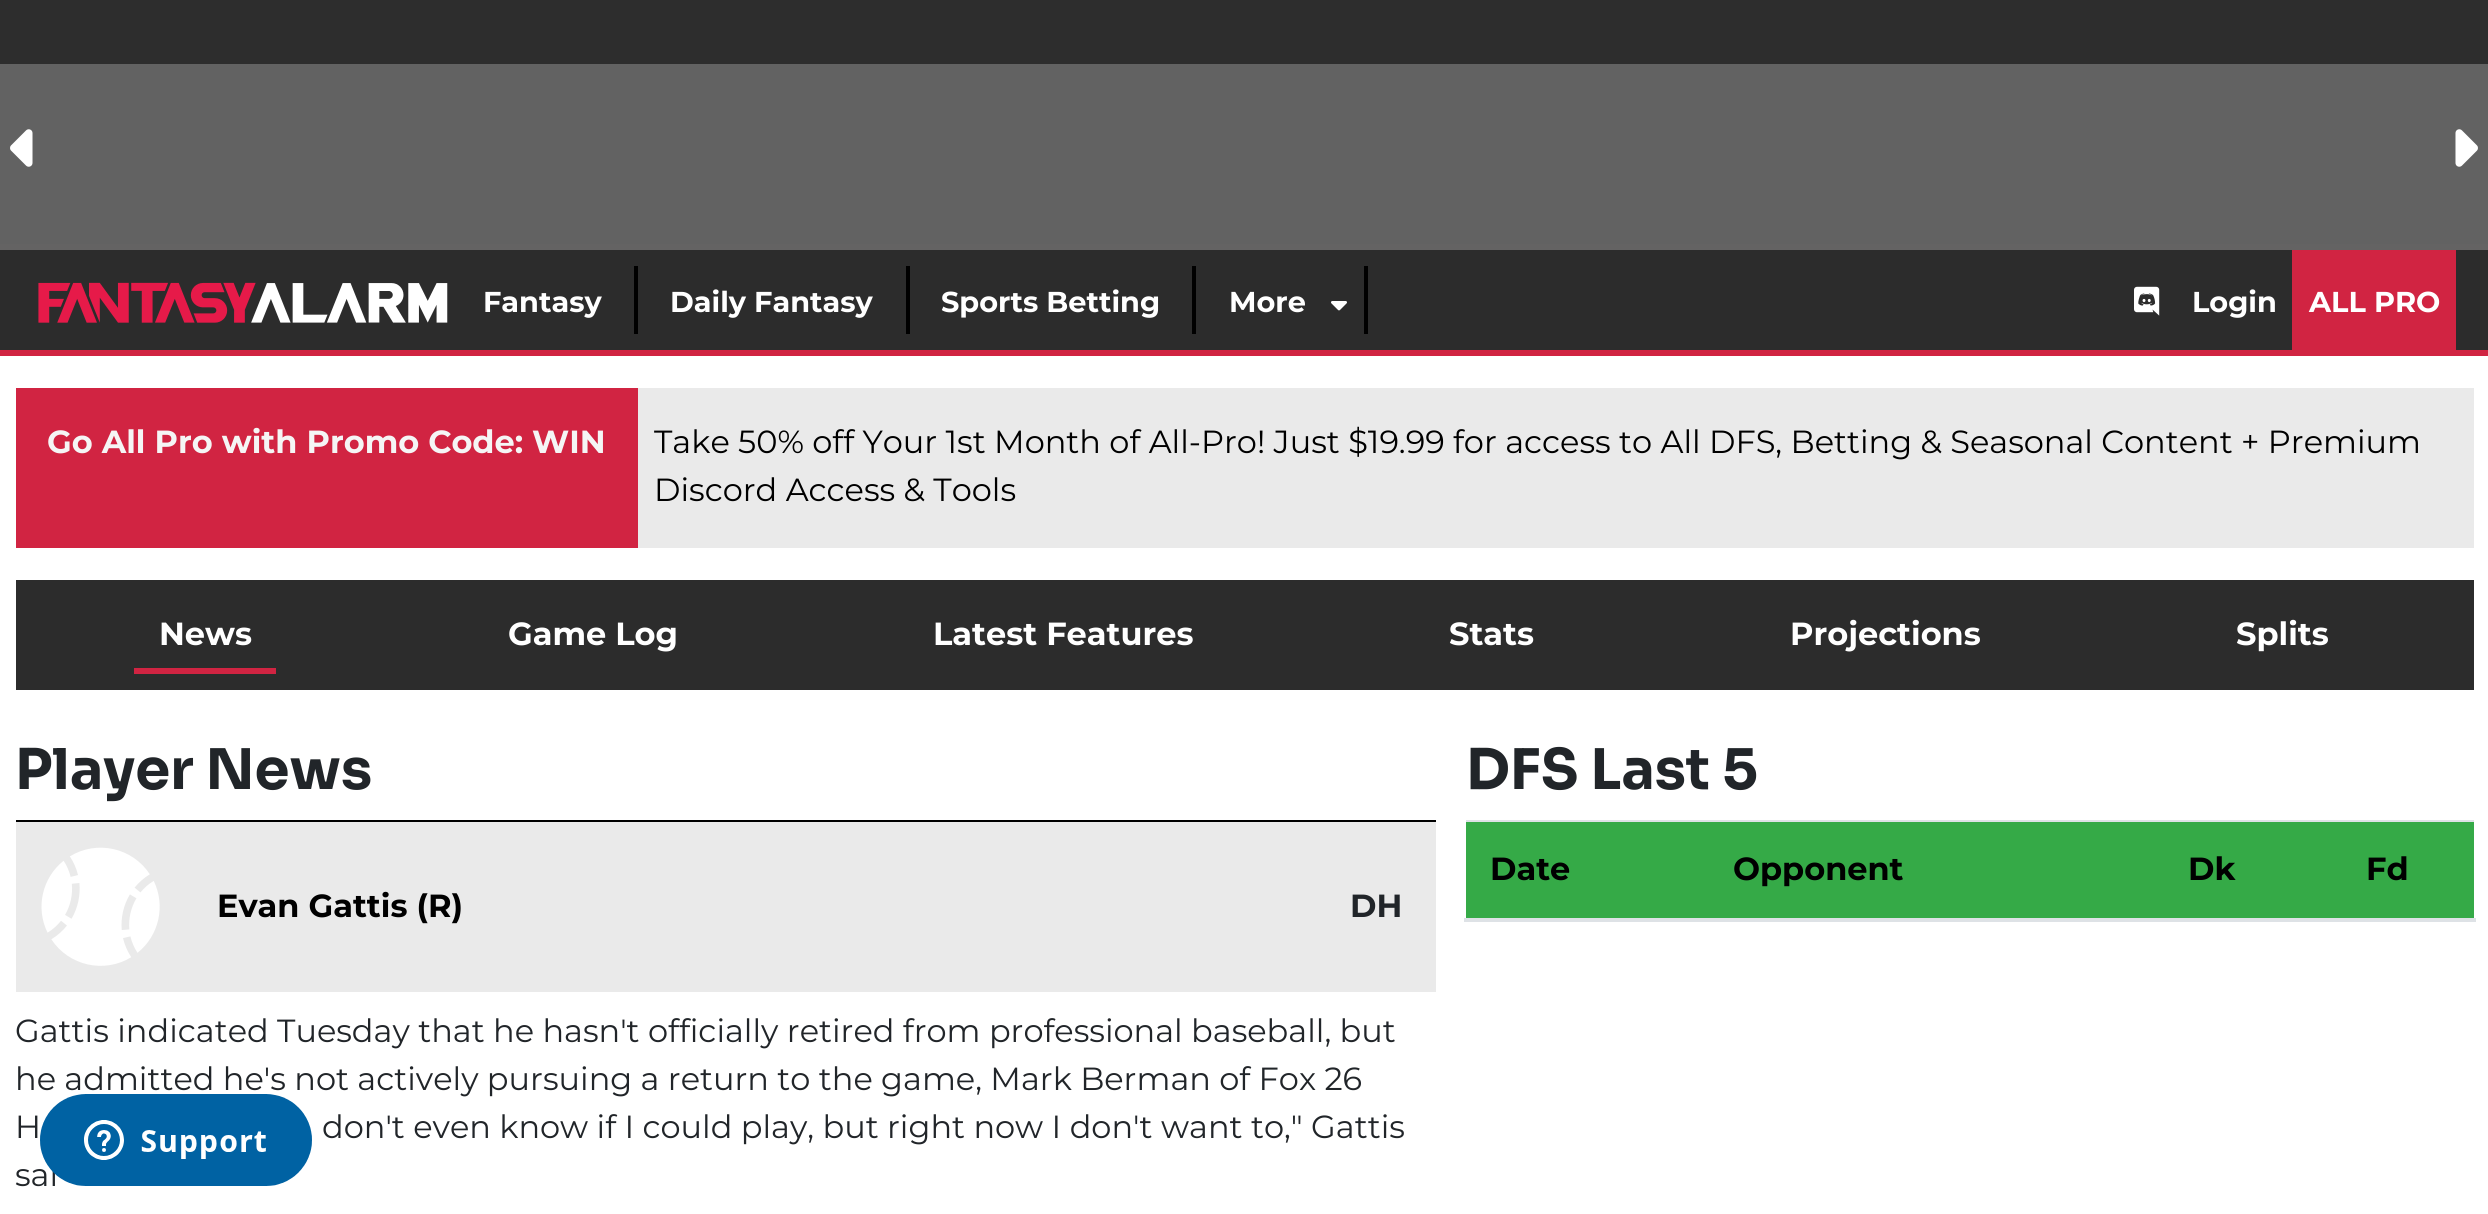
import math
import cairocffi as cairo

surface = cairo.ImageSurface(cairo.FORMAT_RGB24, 2488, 1214)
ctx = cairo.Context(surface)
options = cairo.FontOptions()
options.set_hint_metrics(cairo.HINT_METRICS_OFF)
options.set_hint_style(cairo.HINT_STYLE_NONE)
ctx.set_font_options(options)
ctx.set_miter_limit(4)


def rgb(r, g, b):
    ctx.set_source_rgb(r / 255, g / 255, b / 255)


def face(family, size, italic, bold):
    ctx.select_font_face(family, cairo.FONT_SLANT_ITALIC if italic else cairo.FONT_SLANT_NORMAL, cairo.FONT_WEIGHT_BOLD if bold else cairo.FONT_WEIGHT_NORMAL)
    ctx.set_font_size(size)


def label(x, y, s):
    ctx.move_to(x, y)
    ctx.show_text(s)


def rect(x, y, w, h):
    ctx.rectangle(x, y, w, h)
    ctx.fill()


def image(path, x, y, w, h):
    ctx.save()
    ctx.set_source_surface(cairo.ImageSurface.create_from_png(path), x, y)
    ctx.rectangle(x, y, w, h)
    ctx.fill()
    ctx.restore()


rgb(255, 255, 255)
ctx.paint()
rgb(100, 99, 99)
rect(0, 244, 2488, 6)
rgb(45, 45, 45)
rect(0, 0, 2488, 64)
rgb(98, 98, 98)
rect(0, 64, 2488, 180)
image('image0.png', 10, 129, 23, 38)
image('image1.png', 2455, 129, 23, 38)
rgb(209, 36, 66)
rect(0, 350, 2488, 6)
rgb(44, 44, 44)
rect(0, 250, 2488, 100)
image('image2.png', 38, 282, 410, 41)
rgb(0, 0, 0)
rect(634, 266, 4, 68)
face('Montserrat', 28.75, 0, 1)
rgb(255, 255, 255)
label(483, 312, 'Fantasy')
rgb(0, 0, 0)
rect(906, 266, 4, 68)
rgb(255, 255, 255)
label(670, 312, 'Daily Fantasy')
rgb(0, 0, 0)
rect(1192, 266, 4, 68)
rgb(255, 255, 255)
label(941, 312, 'Sports Betting')
rgb(0, 0, 0)
rect(1364, 266, 4, 68)
rgb(255, 255, 255)
label(1229, 312, 'More')
image('image3.png', 1331, 301, 16, 10)
image('image4.png', 2134, 286, 26, 30)
label(2192, 312, 'Login')
rgb(209, 36, 66)
rect(2292, 250, 164, 100)
rgb(255, 255, 255)
label(2309, 312, 'ALL PRO')
rgb(209, 36, 66)
rect(16, 388, 622, 160)
face('Montserrat', 32, 0, 1)
rgb(245, 245, 245)
label(47, 453, 'Go All Pro with Promo Code: WIN')
rgb(234, 234, 234)
rect(638, 388, 1836, 160)
face('Montserrat', 32, 0, 0)
rgb(0, 0, 0)
label(654, 453, 'Take 50% off Your 1st Month of All-Pro! Just $19.99 for access to All DFS, Betting & Seasonal Content + Premium')
label(654, 501, 'Discord Access & Tools')
rgb(44, 44, 44)
rect(16, 580, 2458, 110)
rgb(209, 36, 66)
rect(134, 668, 142, 6)
face('Montserrat', 32, 0, 1)
rgb(255, 255, 255)
label(159, 645, 'News')
label(508, 645, 'Game Log')
label(933, 645, 'Latest Features')
label(1449, 645, 'Stats')
label(1790, 645, 'Projections')
label(2236, 645, 'Splits')
face('Sora', 56, 0, 1)
rgb(33, 37, 41)
label(15, 789, 'Player News')
rgb(0, 0, 0)
rect(16, 820, 1420, 2)
rgb(234, 234, 234)
rect(16, 822, 1420, 170)
image('image5.png', 41, 847, 119, 119)
face('Montserrat', 32, 0, 1)
rgb(0, 0, 0)
label(217, 917, 'Evan Gattis (R)')
rgb(33, 37, 41)
label(1350, 917, 'DH')
face('Montserrat', 32, 0, 0)
label(15, 1042, 'Gattis indicated Tuesday that he hasn\'t officially retired from professional baseball, but')
label(15, 1090, 'he admitted he\'s not actively pursuing a return to the game, Mark Berman of Fox 26')
label(15, 1138, 'H')
label(322, 1138, 'don\'t even know if I could play, but right now I don\'t want to," Gattis')
label(15, 1186, 'sai')
face('Sora', 56, 0, 1)
label(1466, 789, 'DFS Last 5')
rgb(53, 170, 71)
rect(1466, 822, 1008, 96)
face('Montserrat', 32, 0, 1)
rgb(0, 0, 0)
label(1490, 880, 'Date')
label(1733, 880, 'Opponent')
label(2188, 880, 'Dk')
rgb(222, 226, 230)
rect(1466, 820, 1008, 2)
rect(1464, 918, 1012, 4)
rgb(0, 0, 0)
label(2366, 880, 'Fd')
image('image6.png', 40, 1094, 272, 92)
surface.write_to_png('render.png')
